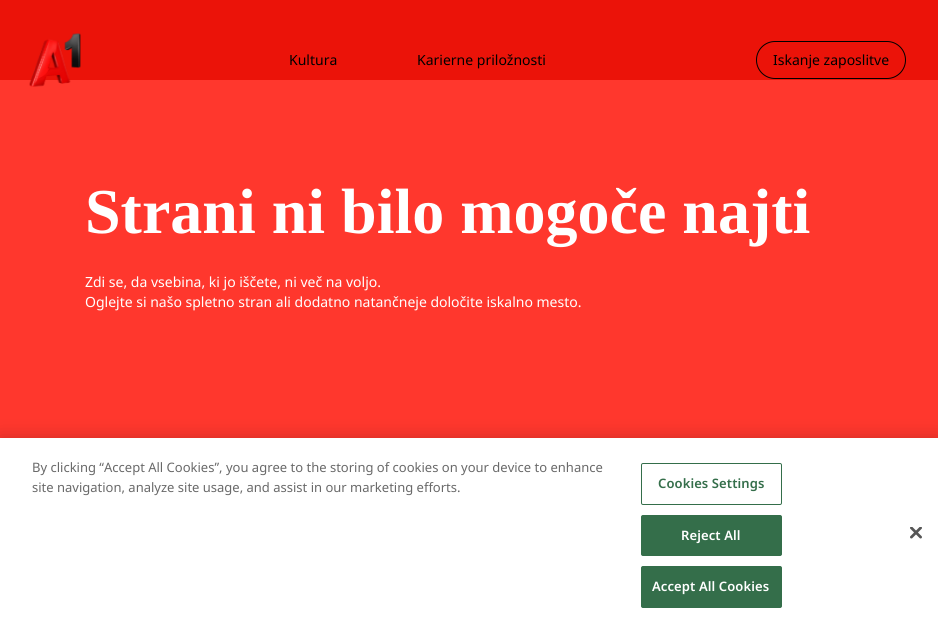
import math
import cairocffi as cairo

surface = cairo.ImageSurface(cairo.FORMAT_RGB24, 938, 628)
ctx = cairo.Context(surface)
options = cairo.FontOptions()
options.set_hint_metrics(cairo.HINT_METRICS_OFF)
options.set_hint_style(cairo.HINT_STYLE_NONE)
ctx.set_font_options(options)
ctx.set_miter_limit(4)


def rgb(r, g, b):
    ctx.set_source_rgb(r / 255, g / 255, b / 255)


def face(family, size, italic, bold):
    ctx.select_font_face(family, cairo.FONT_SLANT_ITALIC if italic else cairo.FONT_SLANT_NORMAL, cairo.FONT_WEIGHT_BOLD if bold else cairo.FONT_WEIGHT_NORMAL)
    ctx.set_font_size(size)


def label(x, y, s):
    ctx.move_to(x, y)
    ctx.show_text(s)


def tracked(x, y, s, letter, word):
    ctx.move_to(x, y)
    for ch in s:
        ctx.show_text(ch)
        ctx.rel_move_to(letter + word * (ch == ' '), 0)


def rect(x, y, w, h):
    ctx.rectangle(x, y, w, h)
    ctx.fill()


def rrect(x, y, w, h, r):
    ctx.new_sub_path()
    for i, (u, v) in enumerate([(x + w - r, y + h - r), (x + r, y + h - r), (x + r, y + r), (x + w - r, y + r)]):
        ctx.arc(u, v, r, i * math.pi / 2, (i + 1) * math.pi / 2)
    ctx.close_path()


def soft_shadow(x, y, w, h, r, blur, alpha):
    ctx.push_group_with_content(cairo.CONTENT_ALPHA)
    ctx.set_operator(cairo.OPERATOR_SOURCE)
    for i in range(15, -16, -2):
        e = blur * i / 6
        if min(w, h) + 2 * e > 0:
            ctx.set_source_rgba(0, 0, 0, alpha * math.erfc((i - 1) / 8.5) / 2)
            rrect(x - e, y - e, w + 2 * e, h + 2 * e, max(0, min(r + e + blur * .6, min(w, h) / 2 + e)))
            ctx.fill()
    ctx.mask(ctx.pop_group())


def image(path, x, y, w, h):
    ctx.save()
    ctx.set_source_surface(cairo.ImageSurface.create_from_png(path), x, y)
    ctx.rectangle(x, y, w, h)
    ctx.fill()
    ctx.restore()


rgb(235, 19, 9)
ctx.paint()
rgb(255, 55, 45)
rect(0, 80, 938, 358)
image('image0.png', 29, 33, 52, 54)
face('Noto Sans', 14, 0, 0)
rgb(0, 0, 0)
label(289, 65, 'Kultura')
label(417, 65, 'Karierne priložnosti')
rrect(756.5, 41.5, 149, 37, 18.5)
ctx.set_line_width(1)
ctx.stroke()
label(773, 65, 'Iskanje zaposlitve')
face('Liberation Serif', 64, 0, 1)
rgb(255, 255, 255)
label(85, 233, 'Strani ni bilo mogoče najti')
face('Noto Sans', 14, 0, 0)
label(85, 287, 'Zdi se, da vsebina, ki jo iščete, ni več na voljo.')
label(85, 307, 'Oglejte si našo spletno stran ali dodatno natančneje določite iskalno mesto.')
rgb(0, 0, 0)
soft_shadow(0, 438, 938, 190, 0, 9, 0.2)
rgb(255, 255, 255)
rect(0, 438, 938, 190)
face('Noto Sans', 13, 0, 0)
rgb(105, 105, 105)
label(32, 472, 'By clicking “Accept All Cookies”, you agree to the storing of cookies on your device to enhance')
label(32, 492, 'site navigation, analyze site usage, and assist in our marketing efforts.')
rrect(641.5, 463.5, 140, 41, 1.5)
rgb(52, 110, 74)
ctx.stroke()
face('Noto Sans SemiBold', 13, 0, 0)
tracked(658, 488, 'Cookies Settings', 0.1, 0)
rrect(641.5, 515.5, 140, 40, 1.5)
ctx.fill_preserve()
ctx.stroke()
rgb(255, 255, 255)
tracked(681, 540, 'Reject All', 0.1, 0)
rgb(52, 110, 74)
rrect(641.5, 566.5, 140, 41, 1.5)
ctx.fill_preserve()
ctx.stroke()
rgb(255, 255, 255)
tracked(652, 591, 'Accept All Cookies', 0.1, 0)
image('image1.png', 910, 527, 12, 12)
surface.write_to_png('render.png')
